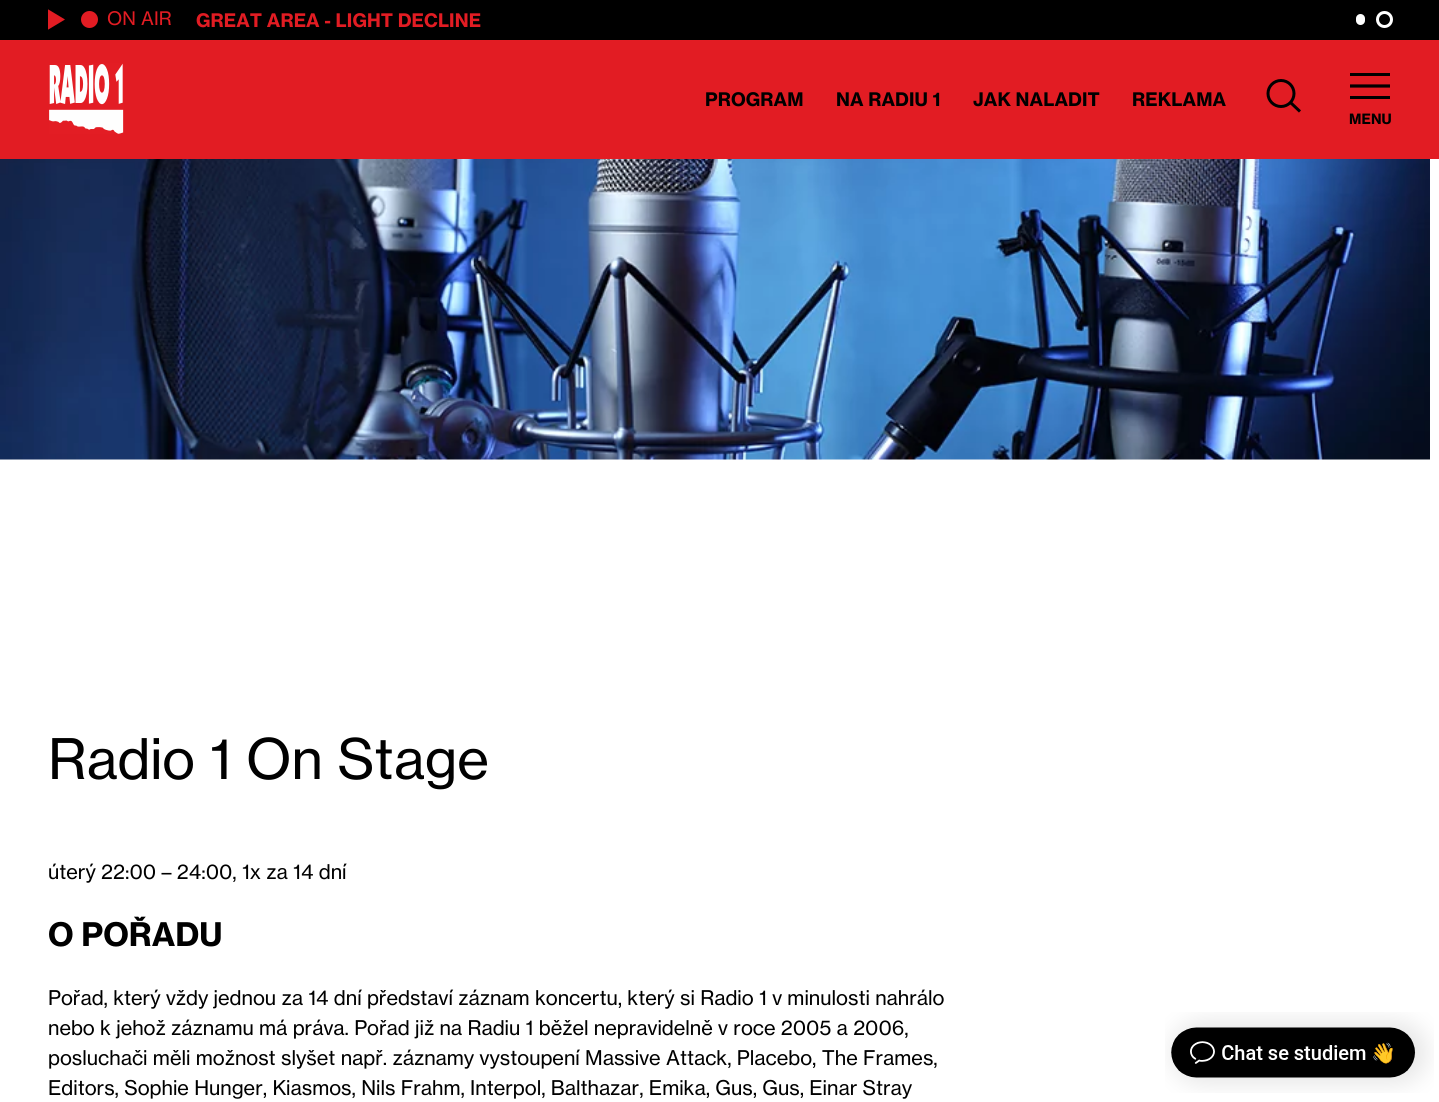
import math
import cairocffi as cairo

surface = cairo.ImageSurface(cairo.FORMAT_RGB24, 1439, 1102)
ctx = cairo.Context(surface)
options = cairo.FontOptions()
options.set_hint_metrics(cairo.HINT_METRICS_OFF)
options.set_hint_style(cairo.HINT_STYLE_NONE)
ctx.set_font_options(options)
ctx.set_miter_limit(4)


def rgb(r, g, b):
    ctx.set_source_rgb(r / 255, g / 255, b / 255)


def face(family, size, italic, bold):
    ctx.select_font_face(family, cairo.FONT_SLANT_ITALIC if italic else cairo.FONT_SLANT_NORMAL, cairo.FONT_WEIGHT_BOLD if bold else cairo.FONT_WEIGHT_NORMAL)
    ctx.set_font_size(size)


def label(x, y, s):
    ctx.move_to(x, y)
    ctx.show_text(s)


def tracked(x, y, s, letter, word):
    ctx.move_to(x, y)
    for ch in s:
        ctx.show_text(ch)
        ctx.rel_move_to(letter + word * (ch == ' '), 0)


def rect(x, y, w, h):
    ctx.rectangle(x, y, w, h)
    ctx.fill()


def rrect(x, y, w, h, r):
    ctx.new_sub_path()
    for i, (u, v) in enumerate([(x + w - r, y + h - r), (x + r, y + h - r), (x + r, y + r), (x + w - r, y + r)]):
        ctx.arc(u, v, r, i * math.pi / 2, (i + 1) * math.pi / 2)
    ctx.close_path()


def image(path, x, y, w, h):
    ctx.save()
    ctx.set_source_surface(cairo.ImageSurface.create_from_png(path), x, y)
    ctx.rectangle(x, y, w, h)
    ctx.fill()
    ctx.restore()


rgb(255, 255, 255)
ctx.paint()
rgb(0, 0, 0)
rect(0, 0, 1439, 40)
ctx.save()
ctx.rectangle(48, 9, 17, 21)
ctx.clip()
rgb(226, 28, 35)
ctx.new_path()
ctx.move_to(65, 19.5)
ctx.line_to(47.5, 30)
ctx.line_to(47.5, 9)
ctx.close_path()
ctx.fill()
ctx.restore()
rgb(226, 28, 35)
ctx.arc(89.5, 19.5, 8.5, 0, 2 * math.pi)
ctx.fill()
face('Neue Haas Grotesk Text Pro', 18.4, 0, 0)
tracked(107, 25, 'ON AIR', 0.1, 0)
face('Neue Haas Grotesk Text Pro', 18.4, 0, 1)
tracked(196, 27, 'GREAT AREA - LIGHT DECLINE', 0.1, 0)
rgb(255, 255, 255)
rrect(1354.5, 12.5, 12, 14, 6)
ctx.fill_preserve()
rgb(0, 0, 0)
ctx.set_line_width(3)
ctx.stroke()
ctx.arc(1384.5, 19.5, 7, 0, 2 * math.pi)
rgb(255, 255, 255)
ctx.stroke()
rgb(226, 28, 35)
rect(0, 40, 1439, 119)
image('image0.png', 49, 63, 75, 71)
rgb(0, 0, 0)
tracked(705, 106, 'PROGRAM', 0.1, 0)
tracked(836, 106, 'NA RADIU 1', 0.1, 0)
tracked(973, 106, 'JAK NALADIT', 0.1, 0)
tracked(1132, 106, 'REKLAMA', 0.1, 0)
ctx.new_path()
ctx.arc(1281, 93.5, 13, 0, 2 * math.pi)
ctx.stroke()
ctx.new_path()
ctx.move_to(1291, 103)
ctx.line_to(1300, 111.5)
ctx.stroke()
rect(1350, 73, 40, 3)
ctx.new_path()
ctx.move_to(1350, 86)
ctx.line_to(1390, 86)
ctx.set_line_width(3.2)
ctx.stroke()
rect(1350, 96, 40, 3)
face('Neue Haas Grotesk Text Pro', 14, 0, 1)
tracked(1349, 124, 'MENU', 0.1, 0)
image('image1.png', 0, 159, 1430, 301)
face('Neue Haas Grotesk Text Pro', 55, 0, 0)
label(48, 779, 'Radio 1 On Stage')
face('Neue Haas Grotesk Text Pro', 20, 0, 0)
label(48, 879, 'úterý 22:00 – 24:00, 1x za 14 dní')
face('Neue Haas Grotesk Text Pro', 32, 0, 1)
label(48, 946, 'O POŘADU')
face('Neue Haas Grotesk Text Pro', 20, 0, 0)
label(48, 1005, 'Pořad, který vždy jednou za 14 dní představí záznam koncertu, který si Radio 1 v minulosti nahrálo')
label(48, 1035, 'nebo k jehož záznamu má práva. Pořad již na Radiu 1 běžel nepravidelně v roce 2005 a 2006,')
label(48, 1065, 'posluchači měli možnost slyšet např. záznamy vystoupení Massive Attack, Placebo, The Frames,')
label(48, 1095, 'Editors, Sophie Hunger, Kiasmos, Nils Frahm, Interpol, Balthazar, Emika, Gus, Gus, Einar Stray')
image('image2.png', 1165, 1012, 269, 81)
surface.write_to_png('render.png')
